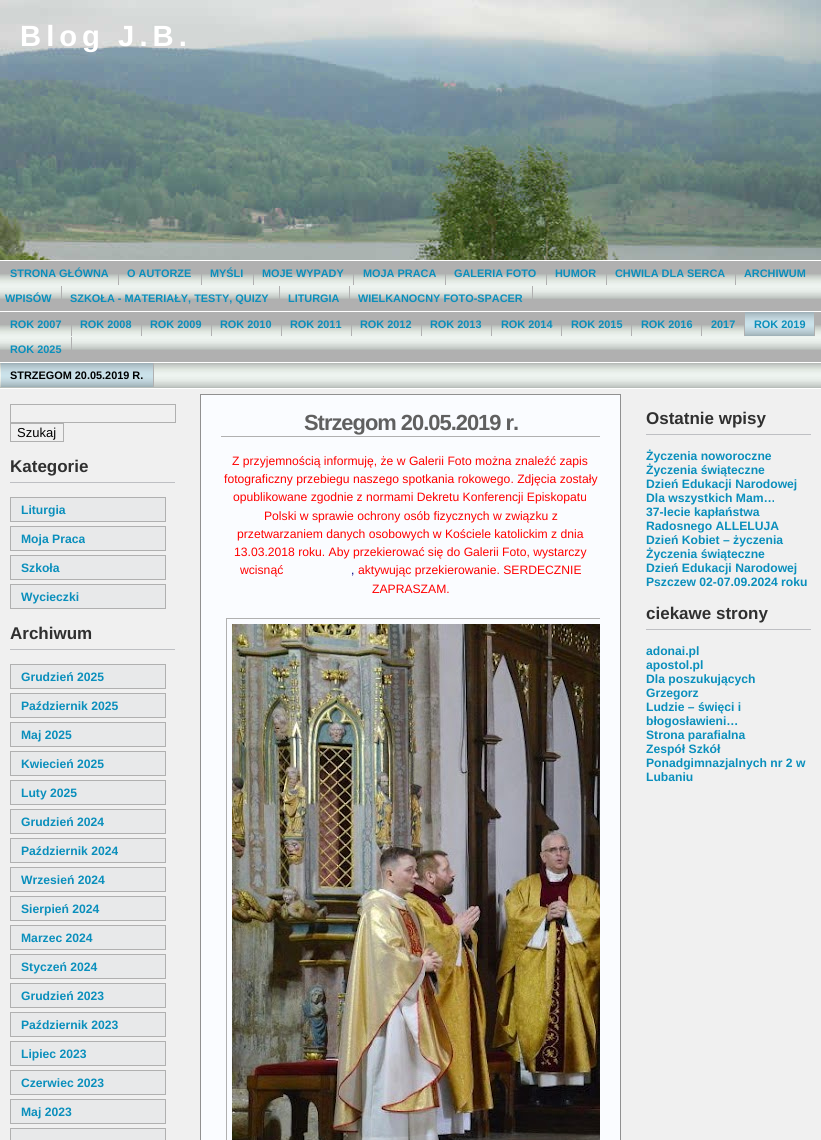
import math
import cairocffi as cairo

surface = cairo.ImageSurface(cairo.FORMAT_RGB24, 821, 1140)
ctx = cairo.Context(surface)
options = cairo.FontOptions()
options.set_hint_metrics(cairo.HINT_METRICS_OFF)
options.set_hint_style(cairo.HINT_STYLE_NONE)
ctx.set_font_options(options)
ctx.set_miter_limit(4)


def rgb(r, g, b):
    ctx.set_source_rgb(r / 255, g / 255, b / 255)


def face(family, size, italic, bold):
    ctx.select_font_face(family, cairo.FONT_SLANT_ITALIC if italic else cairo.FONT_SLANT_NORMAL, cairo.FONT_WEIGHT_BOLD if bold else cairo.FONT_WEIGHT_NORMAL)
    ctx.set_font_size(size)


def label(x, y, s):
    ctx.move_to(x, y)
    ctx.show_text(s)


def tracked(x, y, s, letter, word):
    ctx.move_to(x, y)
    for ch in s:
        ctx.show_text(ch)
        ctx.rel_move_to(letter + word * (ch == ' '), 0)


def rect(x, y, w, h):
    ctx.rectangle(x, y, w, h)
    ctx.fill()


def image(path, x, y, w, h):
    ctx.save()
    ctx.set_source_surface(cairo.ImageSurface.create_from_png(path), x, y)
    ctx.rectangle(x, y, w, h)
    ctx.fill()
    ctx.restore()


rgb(240, 240, 240)
ctx.paint()
image('image0.png', 0, 0, 821, 260)
face('Liberation Sans', 29.25, 0, 1)
rgb(255, 255, 255)
tracked(20, 46, 'Blog J.B.', 5, 0)
rgb(176, 176, 176)
rect(0, 261, 821, 50)
image('image1.png', 0, 274, 821, 25)
rgb(255, 255, 255)
rect(0, 260, 821, 1)
rect(0, 311, 821, 1)
face('Liberation Sans', 10.9, 0, 1)
rgb(10, 143, 188)
label(10, 277, 'STRONA GŁÓWNA')
rgb(176, 176, 176)
rect(118, 274, 1, 11)
rgb(10, 143, 188)
label(127, 277, 'O AUTORZE')
rgb(176, 176, 176)
rect(201, 274, 1, 11)
rgb(10, 143, 188)
label(210, 277, 'MYŚLI')
rgb(176, 176, 176)
rect(253, 274, 1, 11)
rgb(10, 143, 188)
label(262, 277, 'MOJE WYPADY')
rgb(176, 176, 176)
rect(353, 274, 1, 11)
rgb(10, 143, 188)
label(363, 277, 'MOJA PRACA')
rgb(176, 176, 176)
rect(445, 274, 1, 11)
rgb(10, 143, 188)
label(454, 277, 'GALERIA FOTO')
rgb(176, 176, 176)
rect(546, 274, 1, 11)
rgb(10, 143, 188)
label(555, 277, 'HUMOR')
rgb(176, 176, 176)
rect(606, 274, 1, 11)
rgb(10, 143, 188)
label(615, 277, 'CHWILA DLA SERCA')
rgb(176, 176, 176)
rect(735, 274, 1, 11)
rgb(10, 143, 188)
label(744, 277, 'ARCHIWUM')
label(5, 302, 'WPISÓW')
rgb(176, 176, 176)
rect(61, 286, 1, 13)
rgb(10, 143, 188)
label(70, 302, 'SZKOŁA - MATERIAŁY, TESTY, QUIZY')
rgb(176, 176, 176)
rect(279, 286, 1, 13)
rgb(10, 143, 188)
label(288, 302, 'LITURGIA')
rgb(176, 176, 176)
rect(349, 286, 1, 13)
rgb(10, 143, 188)
label(358, 302, 'WIELKANOCNY FOTO-SPACER')
rgb(176, 176, 176)
rect(532, 286, 1, 13)
rect(0, 312, 821, 50)
image('image1.png', 0, 325, 821, 25)
rgb(255, 255, 255)
rect(0, 362, 821, 1)
rgb(10, 143, 188)
label(10, 328, 'ROK 2007')
rgb(176, 176, 176)
rect(71, 325, 1, 11)
rgb(10, 143, 188)
label(80, 328, 'ROK 2008')
rgb(176, 176, 176)
rect(141, 325, 1, 11)
rgb(10, 143, 188)
label(150, 328, 'ROK 2009')
rgb(176, 176, 176)
rect(211, 325, 1, 11)
rgb(10, 143, 188)
label(220, 328, 'ROK 2010')
rgb(176, 176, 176)
rect(281, 325, 1, 11)
rgb(10, 143, 188)
label(290, 328, 'ROK 2011')
rgb(176, 176, 176)
rect(351, 325, 1, 11)
rgb(10, 143, 188)
label(360, 328, 'ROK 2012')
rgb(176, 176, 176)
rect(421, 325, 1, 11)
rgb(10, 143, 188)
label(430, 328, 'ROK 2013')
rgb(176, 176, 176)
rect(491, 325, 1, 11)
rgb(10, 143, 188)
label(501, 328, 'ROK 2014')
rgb(176, 176, 176)
rect(561, 325, 1, 11)
rgb(10, 143, 188)
label(571, 328, 'ROK 2015')
rgb(176, 176, 176)
rect(631, 325, 1, 11)
rgb(10, 143, 188)
label(641, 328, 'ROK 2016')
rgb(176, 176, 176)
rect(701, 325, 1, 11)
rgb(10, 143, 188)
label(711, 328, '2017')
rgb(176, 176, 176)
rect(744, 325, 1, 11)
image('image2.png', 745, 312, 69, 24)
rgb(10, 143, 188)
label(754, 328, 'ROK 2019')
rgb(176, 176, 176)
rect(814, 325, 1, 11)
rgb(10, 143, 188)
label(10, 353, 'ROK 2025')
rgb(176, 176, 176)
rect(71, 337, 1, 13)
image('image1.png', 0, 363, 821, 25)
rgb(255, 255, 255)
rect(0, 388, 821, 1)
image('image3.png', 1, 363, 152, 24)
rgb(0, 0, 0)
label(10, 379, 'STRZEGOM 20.05.2019 R.')
rgb(176, 176, 176)
rect(153, 363, 1, 24)
ctx.rectangle(10.5, 404.5, 165, 18)
ctx.set_line_width(1)
ctx.stroke()
ctx.rectangle(10.5, 423.5, 53, 18)
ctx.stroke()
face('Liberation Sans', 13, 0, 0)
rgb(0, 0, 0)
label(17, 437, 'Szukaj')
rgb(190, 191, 195)
rect(10, 482, 165, 1)
face('Liberation Sans', 17, 0, 1)
rgb(48, 48, 48)
label(10, 472, 'Kategorie')
rgb(232, 233, 234)
ctx.rectangle(10.5, 497.5, 155, 24)
ctx.fill_preserve()
rgb(176, 176, 176)
ctx.stroke()
face('Liberation Sans', 12.15, 0, 1)
rgb(10, 143, 188)
label(21, 514, 'Liturgia')
rgb(232, 233, 234)
ctx.rectangle(10.5, 526.5, 155, 24)
ctx.fill_preserve()
rgb(176, 176, 176)
ctx.stroke()
rgb(10, 143, 188)
label(21, 543, 'Moja Praca')
rgb(232, 233, 234)
ctx.rectangle(10.5, 555.5, 155, 24)
ctx.fill_preserve()
rgb(176, 176, 176)
ctx.stroke()
rgb(10, 143, 188)
label(21, 572, 'Szkoła')
rgb(232, 233, 234)
ctx.rectangle(10.5, 584.5, 155, 24)
ctx.fill_preserve()
rgb(176, 176, 176)
ctx.stroke()
rgb(10, 143, 188)
label(21, 601, 'Wycieczki')
rgb(190, 191, 195)
rect(10, 649, 165, 1)
face('Liberation Sans', 17, 0, 1)
rgb(48, 48, 48)
label(10, 639, 'Archiwum')
rgb(232, 233, 234)
ctx.rectangle(10.5, 664.5, 155, 24)
ctx.fill_preserve()
rgb(176, 176, 176)
ctx.stroke()
face('Liberation Sans', 12.15, 0, 1)
rgb(10, 143, 188)
label(21, 681, 'Grudzień 2025')
rgb(232, 233, 234)
ctx.rectangle(10.5, 693.5, 155, 24)
ctx.fill_preserve()
rgb(176, 176, 176)
ctx.stroke()
rgb(10, 143, 188)
label(21, 710, 'Październik 2025')
rgb(232, 233, 234)
ctx.rectangle(10.5, 722.5, 155, 24)
ctx.fill_preserve()
rgb(176, 176, 176)
ctx.stroke()
rgb(10, 143, 188)
label(21, 739, 'Maj 2025')
rgb(232, 233, 234)
ctx.rectangle(10.5, 751.5, 155, 24)
ctx.fill_preserve()
rgb(176, 176, 176)
ctx.stroke()
rgb(10, 143, 188)
label(21, 768, 'Kwiecień 2025')
rgb(232, 233, 234)
ctx.rectangle(10.5, 780.5, 155, 24)
ctx.fill_preserve()
rgb(176, 176, 176)
ctx.stroke()
rgb(10, 143, 188)
label(21, 797, 'Luty 2025')
rgb(232, 233, 234)
ctx.rectangle(10.5, 809.5, 155, 24)
ctx.fill_preserve()
rgb(176, 176, 176)
ctx.stroke()
rgb(10, 143, 188)
label(21, 826, 'Grudzień 2024')
rgb(232, 233, 234)
ctx.rectangle(10.5, 838.5, 155, 24)
ctx.fill_preserve()
rgb(176, 176, 176)
ctx.stroke()
rgb(10, 143, 188)
label(21, 855, 'Październik 2024')
rgb(232, 233, 234)
ctx.rectangle(10.5, 867.5, 155, 24)
ctx.fill_preserve()
rgb(176, 176, 176)
ctx.stroke()
rgb(10, 143, 188)
label(21, 884, 'Wrzesień 2024')
rgb(232, 233, 234)
ctx.rectangle(10.5, 896.5, 155, 24)
ctx.fill_preserve()
rgb(176, 176, 176)
ctx.stroke()
rgb(10, 143, 188)
label(21, 913, 'Sierpień 2024')
rgb(232, 233, 234)
ctx.rectangle(10.5, 925.5, 155, 24)
ctx.fill_preserve()
rgb(176, 176, 176)
ctx.stroke()
rgb(10, 143, 188)
label(21, 942, 'Marzec 2024')
rgb(232, 233, 234)
ctx.rectangle(10.5, 954.5, 155, 24)
ctx.fill_preserve()
rgb(176, 176, 176)
ctx.stroke()
rgb(10, 143, 188)
label(21, 971, 'Styczeń 2024')
rgb(232, 233, 234)
ctx.rectangle(10.5, 983.5, 155, 24)
ctx.fill_preserve()
rgb(176, 176, 176)
ctx.stroke()
rgb(10, 143, 188)
label(21, 1000, 'Grudzień 2023')
rgb(232, 233, 234)
ctx.rectangle(10.5, 1012.5, 155, 24)
ctx.fill_preserve()
rgb(176, 176, 176)
ctx.stroke()
rgb(10, 143, 188)
label(21, 1029, 'Październik 2023')
rgb(232, 233, 234)
ctx.rectangle(10.5, 1041.5, 155, 24)
ctx.fill_preserve()
rgb(176, 176, 176)
ctx.stroke()
rgb(10, 143, 188)
label(21, 1058, 'Lipiec 2023')
rgb(232, 233, 234)
ctx.rectangle(10.5, 1070.5, 155, 24)
ctx.fill_preserve()
rgb(176, 176, 176)
ctx.stroke()
rgb(10, 143, 188)
label(21, 1087, 'Czerwiec 2023')
rgb(232, 233, 234)
ctx.rectangle(10.5, 1099.5, 155, 24)
ctx.fill_preserve()
rgb(176, 176, 176)
ctx.stroke()
rgb(10, 143, 188)
label(21, 1116, 'Maj 2023')
rgb(232, 233, 234)
ctx.rectangle(10.5, 1128.5, 155, 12)
ctx.fill_preserve()
rgb(176, 176, 176)
ctx.stroke()
rgb(250, 252, 255)
ctx.rectangle(200.5, 394.5, 420, 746)
ctx.fill_preserve()
rgb(144, 144, 144)
ctx.stroke()
rgb(176, 176, 176)
rect(221, 436, 379, 1)
face('Liberation Sans', 21.9, 0, 1)
rgb(96, 96, 96)
tracked(304, 430, 'Strzegom 20.05.2019 r.', -1, 0)
face('Liberation Sans', 12.15, 0, 0)
rgb(255, 0, 0)
label(232, 465, 'Z przyjemnością informuję, że w Galerii Foto można znaleźć zapis')
label(224, 483, 'fotograficzny przebiegu naszego spotkania rokowego. Zdjęcia zostały')
label(233, 501, 'opublikowane zgodnie z normami Dekretu Konferencji Episkopatu')
label(264, 520, 'Polski w sprawie ochrony osób fizycznych w związku z')
label(237, 538, 'przetwarzaniem danych osobowych w Kościele katolickim z dnia')
label(234, 556, '13.03.2018 roku. Aby przekierować się do Galerii Foto, wystarczy')
label(240, 574, 'wcisnąć')
rgb(0, 0, 139)
label(351, 574, ',')
rgb(255, 0, 0)
label(358, 574, 'aktywując przekierowanie. SERDECZNIE')
label(372, 593, 'ZAPRASZAM.')
rgb(190, 191, 195)
rect(646, 629, 165, 1)
face('Liberation Sans', 17, 0, 1)
rgb(48, 48, 48)
label(646, 619, 'ciekawe strony')
ctx.save()
ctx.rectangle(221, 452, 379, 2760)
ctx.clip()
ctx.rectangle(226.5, 618.5, 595, 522)
rgb(176, 176, 176)
ctx.stroke()
ctx.restore()
image('image4.png', 232, 624, 368, 516)
rgb(190, 191, 195)
rect(646, 434, 165, 1)
rgb(48, 48, 48)
label(646, 424, 'Ostatnie wpisy')
face('Liberation Sans', 12.15, 0, 1)
rgb(10, 143, 188)
label(646, 460, 'Życzenia noworoczne')
label(646, 474, 'Życzenia świąteczne')
label(646, 488, 'Dzień Edukacji Narodowej')
label(646, 502, 'Dla wszystkich Mam…')
label(646, 516, '37-lecie kapłaństwa')
label(646, 530, 'Radosnego ALLELUJA')
label(646, 544, 'Dzień Kobiet – życzenia')
label(646, 558, 'Życzenia świąteczne')
label(646, 572, 'Dzień Edukacji Narodowej')
label(646, 586, 'Pszczew 02-07.09.2024 roku')
label(646, 655, 'adonai.pl')
label(646, 669, 'apostol.pl')
label(646, 683, 'Dla poszukujących')
label(646, 697, 'Grzegorz')
label(646, 711, 'Ludzie – święci i')
label(646, 725, 'błogosławieni…')
label(646, 739, 'Strona parafialna')
label(646, 753, 'Zespół Szkół')
label(646, 767, 'Ponadgimnazjalnych nr 2 w')
label(646, 781, 'Lubaniu')
surface.write_to_png('render.png')
